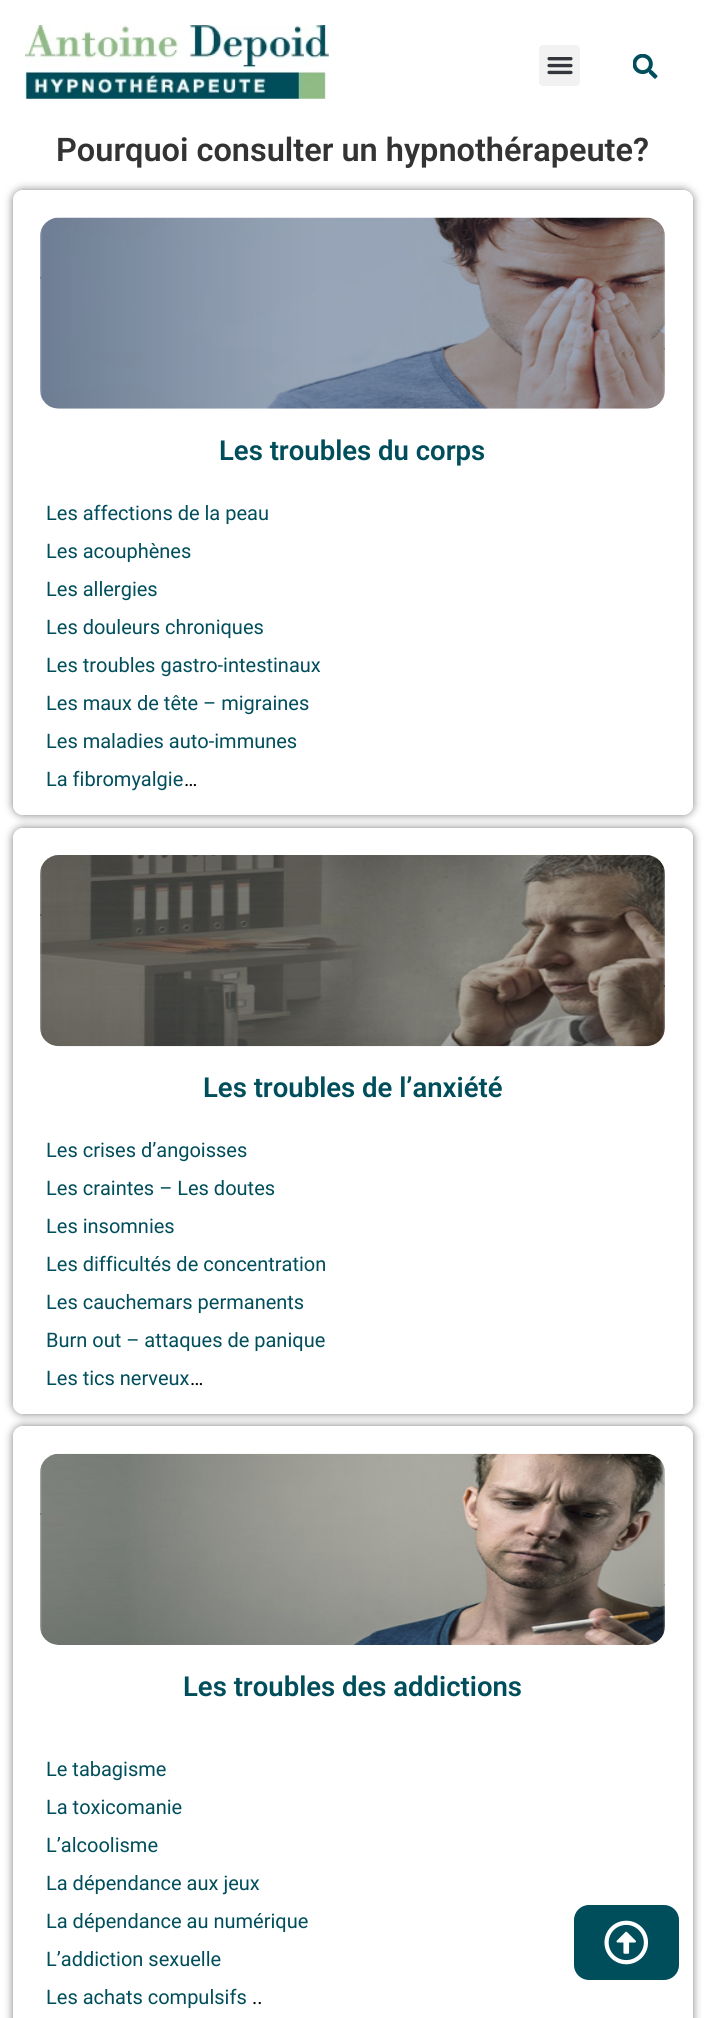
import math
import cairocffi as cairo

surface = cairo.ImageSurface(cairo.FORMAT_RGB24, 704, 2018)
ctx = cairo.Context(surface)
options = cairo.FontOptions()
options.set_hint_metrics(cairo.HINT_METRICS_OFF)
options.set_hint_style(cairo.HINT_STYLE_NONE)
ctx.set_font_options(options)
ctx.set_miter_limit(4)


def rgb(r, g, b):
    ctx.set_source_rgb(r / 255, g / 255, b / 255)


def face(family, size, italic, bold):
    ctx.select_font_face(family, cairo.FONT_SLANT_ITALIC if italic else cairo.FONT_SLANT_NORMAL, cairo.FONT_WEIGHT_BOLD if bold else cairo.FONT_WEIGHT_NORMAL)
    ctx.set_font_size(size)


def label(x, y, s):
    ctx.move_to(x, y)
    ctx.show_text(s)


def rrect(x, y, w, h, r):
    ctx.new_sub_path()
    for i, (u, v) in enumerate([(x + w - r, y + h - r), (x + r, y + h - r), (x + r, y + r), (x + w - r, y + r)]):
        ctx.arc(u, v, r, i * math.pi / 2, (i + 1) * math.pi / 2)
    ctx.close_path()


def soft_shadow(x, y, w, h, r, blur, alpha):
    ctx.push_group_with_content(cairo.CONTENT_ALPHA)
    ctx.set_operator(cairo.OPERATOR_SOURCE)
    for i in range(15, -16, -2):
        e = blur * i / 6
        if min(w, h) + 2 * e > 0:
            ctx.set_source_rgba(0, 0, 0, alpha * math.erfc((i - 1) / 8.5) / 2)
            rrect(x - e, y - e, w + 2 * e, h + 2 * e, max(0, min(r + e + blur * .6, min(w, h) / 2 + e)))
            ctx.fill()
    ctx.mask(ctx.pop_group())


def image(path, x, y, w, h):
    ctx.save()
    ctx.set_source_surface(cairo.ImageSurface.create_from_png(path), x, y)
    ctx.rectangle(x, y, w, h)
    ctx.fill()
    ctx.restore()


rgb(255, 255, 255)
ctx.paint()
image('image0.png', 25, 25, 304, 74)
rgb(242, 242, 242)
rrect(539, 45, 41, 41, 4)
ctx.fill()
image('image1.png', 547, 57, 26, 18)
image('image2.png', 633, 54, 25, 25)
ctx.save()
ctx.set_fill_rule(cairo.FILL_RULE_EVEN_ODD)
ctx.new_path()
ctx.move_to(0, 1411)
ctx.line_to(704, 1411)
ctx.line_to(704, 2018)
ctx.line_to(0, 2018)
ctx.close_path()
ctx.move_to(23, 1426)
ctx.line_to(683, 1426)
ctx.curve_to(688.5, 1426, 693, 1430.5, 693, 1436)
ctx.line_to(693, 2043)
ctx.curve_to(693, 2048.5, 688.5, 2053, 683, 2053)
ctx.line_to(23, 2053)
ctx.curve_to(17.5, 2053, 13, 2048.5, 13, 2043)
ctx.line_to(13, 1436)
ctx.curve_to(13, 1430.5, 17.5, 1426, 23, 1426)
ctx.close_path()
ctx.clip()
rgb(0, 0, 0)
soft_shadow(13, 1426, 680, 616, 10, 4.5, 0.5)
ctx.restore()
rgb(0, 78, 91)
rrect(574, 1905, 105, 75, 15)
ctx.fill()
image('image3.png', 604, 1920, 45, 45)
face('Roboto SemiBold', 32.5, 0, 0)
rgb(51, 51, 51)
label(56, 161, 'Pourquoi consulter un hypnothérapeute?')
ctx.save()
ctx.set_fill_rule(cairo.FILL_RULE_EVEN_ODD)
ctx.new_path()
ctx.move_to(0, 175)
ctx.line_to(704, 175)
ctx.line_to(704, 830)
ctx.line_to(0, 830)
ctx.close_path()
ctx.move_to(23, 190)
ctx.line_to(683, 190)
ctx.curve_to(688.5, 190, 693, 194.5, 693, 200)
ctx.line_to(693, 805)
ctx.curve_to(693, 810.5, 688.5, 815, 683, 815)
ctx.line_to(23, 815)
ctx.curve_to(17.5, 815, 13, 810.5, 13, 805)
ctx.line_to(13, 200)
ctx.curve_to(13, 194.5, 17.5, 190, 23, 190)
ctx.close_path()
ctx.clip()
rgb(0, 0, 0)
soft_shadow(13, 190, 680, 625, 10, 4.5, 0.5)
ctx.restore()
image('image4.png', 40, 217, 625, 192)
face('Roboto SemiBold', 27.5, 0, 0)
rgb(0, 78, 91)
label(219, 460, 'Les troubles du corps')
face('Roboto', 20, 0, 0)
label(46, 520, 'Les affections de la peau')
label(46, 558, 'Les acouphènes')
label(46, 596, 'Les allergies')
label(46, 634, 'Les douleurs chroniques')
label(46, 672, 'Les troubles gastro-intestinaux')
label(46, 710, 'Les maux de tête – migraines')
label(46, 748, 'Les maladies auto-immunes')
label(46, 786, 'La fibromyalgie')
rgb(0, 0, 0)
label(184, 786, '…')
ctx.save()
ctx.set_fill_rule(cairo.FILL_RULE_EVEN_ODD)
ctx.new_path()
ctx.move_to(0, 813)
ctx.line_to(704, 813)
ctx.line_to(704, 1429)
ctx.line_to(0, 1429)
ctx.close_path()
ctx.move_to(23, 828)
ctx.line_to(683, 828)
ctx.curve_to(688.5, 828, 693, 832.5, 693, 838)
ctx.line_to(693, 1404)
ctx.curve_to(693, 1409.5, 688.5, 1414, 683, 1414)
ctx.line_to(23, 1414)
ctx.curve_to(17.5, 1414, 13, 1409.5, 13, 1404)
ctx.line_to(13, 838)
ctx.curve_to(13, 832.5, 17.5, 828, 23, 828)
ctx.close_path()
ctx.clip()
rgb(0, 0, 0)
soft_shadow(13, 828, 680, 586, 10, 4.5, 0.5)
ctx.restore()
image('image5.png', 40, 855, 625, 192)
face('Roboto SemiBold', 27.5, 0, 0)
rgb(0, 78, 91)
label(203, 1097, 'Les troubles de l’anxiété')
face('Roboto', 20, 0, 0)
label(46, 1157, 'Les crises d’angoisses')
label(46, 1195, 'Les craintes – Les doutes')
label(46, 1233, 'Les insomnies')
label(46, 1271, 'Les difficultés de concentration')
label(46, 1309, 'Les cauchemars permanents')
label(46, 1347, 'Burn out – attaques de panique')
label(46, 1385, 'Les tics nerveux')
rgb(0, 0, 0)
label(190, 1385, '…')
image('image6.png', 40, 1453, 625, 192)
face('Roboto SemiBold', 27.5, 0, 0)
rgb(0, 78, 91)
label(183, 1696, 'Les troubles des addictions')
face('Roboto', 20, 0, 0)
label(46, 1776, 'Le tabagisme')
label(46, 1814, 'La toxicomanie')
label(46, 1852, 'L’alcoolisme')
label(46, 1890, 'La dépendance aux jeux')
label(46, 1928, 'La dépendance au numérique')
label(46, 1966, 'L’addiction sexuelle')
label(46, 2004, 'Les achats compulsifs')
rgb(0, 0, 0)
label(252, 2004, '..')
surface.write_to_png('render.png')
